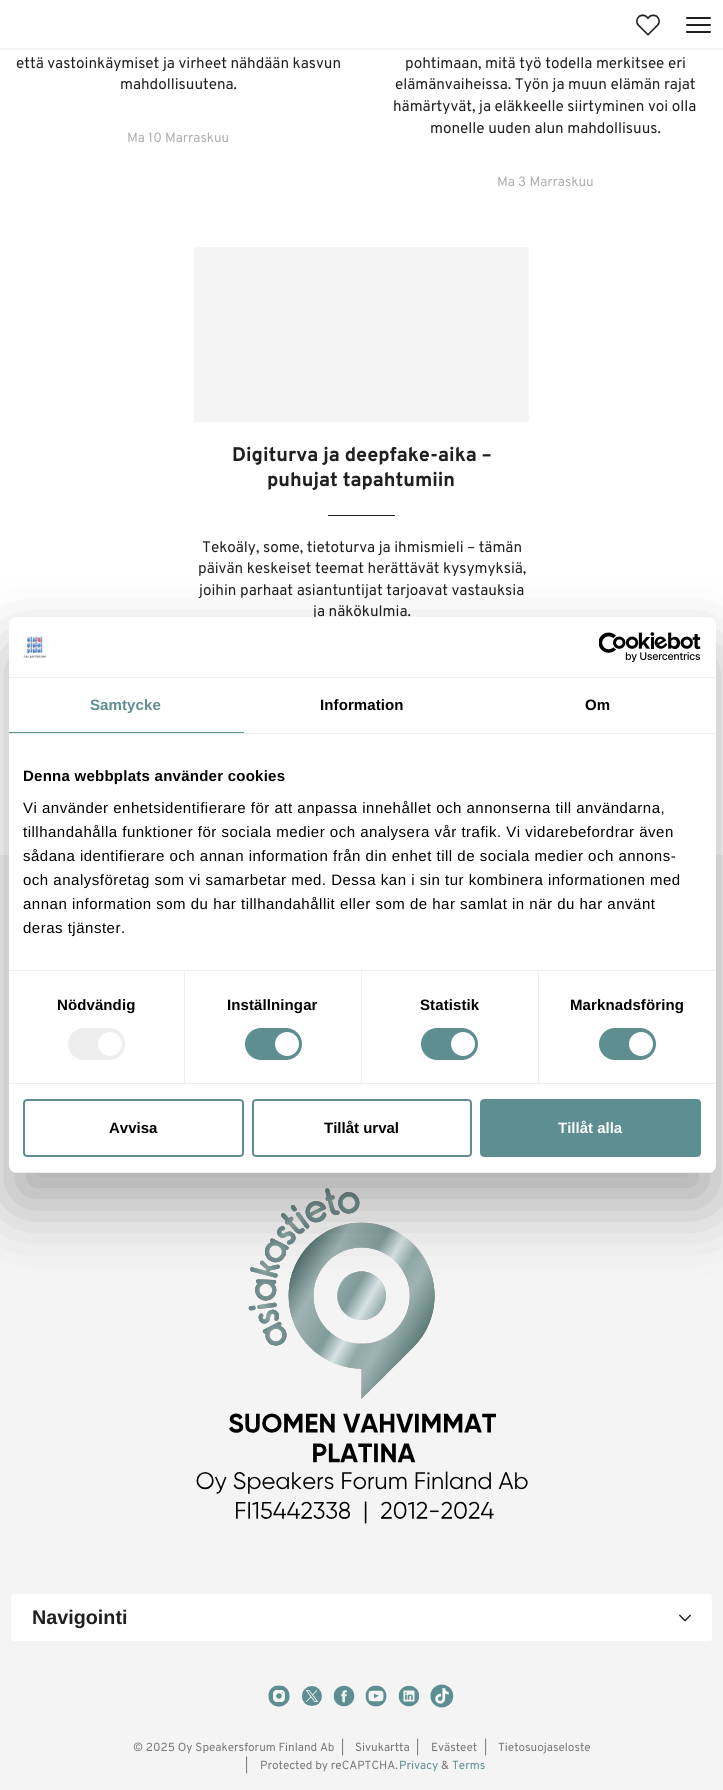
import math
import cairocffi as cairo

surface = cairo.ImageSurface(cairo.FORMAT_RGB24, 723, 1790)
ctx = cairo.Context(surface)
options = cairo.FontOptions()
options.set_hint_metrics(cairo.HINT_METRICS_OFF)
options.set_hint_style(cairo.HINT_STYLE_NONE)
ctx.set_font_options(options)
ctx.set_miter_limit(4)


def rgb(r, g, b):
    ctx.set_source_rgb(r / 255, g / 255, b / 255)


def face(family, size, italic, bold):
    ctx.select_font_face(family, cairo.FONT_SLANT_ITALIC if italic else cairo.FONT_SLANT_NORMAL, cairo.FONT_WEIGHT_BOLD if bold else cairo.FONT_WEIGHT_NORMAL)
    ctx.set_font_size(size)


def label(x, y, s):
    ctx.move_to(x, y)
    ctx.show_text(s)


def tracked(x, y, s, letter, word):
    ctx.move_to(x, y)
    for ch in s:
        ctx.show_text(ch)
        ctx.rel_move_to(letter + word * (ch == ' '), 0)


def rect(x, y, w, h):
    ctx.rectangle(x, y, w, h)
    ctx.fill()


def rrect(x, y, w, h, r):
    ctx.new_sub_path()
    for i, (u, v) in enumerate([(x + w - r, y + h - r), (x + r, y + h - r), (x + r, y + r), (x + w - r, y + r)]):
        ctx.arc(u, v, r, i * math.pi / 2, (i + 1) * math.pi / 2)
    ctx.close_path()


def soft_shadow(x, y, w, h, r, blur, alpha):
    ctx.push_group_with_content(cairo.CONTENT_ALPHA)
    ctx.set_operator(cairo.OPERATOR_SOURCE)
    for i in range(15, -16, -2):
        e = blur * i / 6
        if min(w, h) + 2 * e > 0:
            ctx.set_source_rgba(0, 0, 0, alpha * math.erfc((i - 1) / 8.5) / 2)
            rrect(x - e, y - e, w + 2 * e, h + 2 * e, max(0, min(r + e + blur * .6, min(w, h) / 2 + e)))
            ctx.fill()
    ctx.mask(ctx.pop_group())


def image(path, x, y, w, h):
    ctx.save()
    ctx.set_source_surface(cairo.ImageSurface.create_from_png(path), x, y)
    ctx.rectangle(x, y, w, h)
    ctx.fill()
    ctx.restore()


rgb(255, 255, 255)
ctx.paint()
image('image0.png', 636, 14, 24, 22)
rgb(32, 32, 32)
rrect(686, 17, 25, 2, 1)
ctx.fill()
rrect(686, 24, 25, 2, 1)
ctx.fill()
rrect(686, 31, 25, 2, 1)
ctx.fill()
rgb(244, 244, 244)
rect(0, 48, 723, 2)
face('Overpass', 15.3, 0, 0)
rgb(32, 32, 32)
label(16, 68, 'että vastoinkäymiset ja virheet nähdään kasvun')
label(120, 89, 'mahdollisuutena.')
face('Overpass', 13.5, 0, 0)
rgb(175, 175, 175)
label(127, 142, 'Ma 10 Marraskuu')
face('Overpass', 15.3, 0, 0)
rgb(32, 32, 32)
label(405, 68, 'pohtimaan, mitä työ todella merkitsee eri')
label(395, 89, 'elämänvaiheissa. Työn ja muun elämän rajat')
label(393, 111, 'hämärtyvät, ja eläkkeelle siirtyminen voi olla')
label(430, 133, 'monelle uuden alun mahdollisuus.')
face('Overpass', 13.5, 0, 0)
rgb(175, 175, 175)
label(497, 186, 'Ma 3 Marraskuu')
rgb(244, 244, 244)
rect(194, 247, 335, 175)
face('Overpass ExtraBold', 19.75, 0, 0)
rgb(32, 32, 32)
label(232, 461, 'Digiturva ja deepfake-aika –')
label(267, 486, 'puhujat tapahtumiin')
rect(328, 515, 67, 1)
face('Overpass', 15.3, 0, 0)
label(202, 552, 'Tekoäly, some, tietoturva ja ihmismieli – tämän')
label(198, 573, 'päivän keskeiset teemat herättävät kysymyksiä,')
label(199, 595, 'joihin parhaat asiantuntijat tarjoavat vastauksia')
label(313, 616, 'ja näkökulmia.')
rgb(244, 244, 244)
rect(0, 855, 723, 935)
image('image3.png', 196, 1188, 332, 336)
rgb(0, 0, 0)
soft_shadow(9, 649, 707, 556, 8, 34, 0.3)
rgb(255, 255, 255)
rrect(9, 617, 707, 556, 8)
ctx.fill()
rgb(238, 238, 238)
rect(9, 677, 707, 1)
image('image1.png', 23, 636, 23, 22)
image('image2.png', 599, 632, 102, 30)
rect(9, 733, 707, 1)
rgb(93, 142, 146)
rect(9, 732, 235, 1)
face('Liberation Sans', 15, 0, 1)
tracked(90, 710, 'Samtycke', 0.1, 0)
rgb(0, 0, 0)
tracked(320, 710, 'Information', 0.1, 0)
tracked(585, 710, 'Om', 0.1, 0)
rgb(238, 238, 238)
rect(9, 970, 707, 1)
rgb(0, 0, 0)
tracked(23, 781, 'Denna webbplats använder cookies', 0.25, 0)
face('Liberation Sans', 15, 0, 0)
tracked(23, 813, 'Vi använder enhetsidentifierare för att anpassa innehållet och annonserna till användarna,', 0.5, 0)
tracked(23, 837, 'tillhandahålla funktioner för sociala medier och analysera vår trafik. Vi vidarebefordrar även', 0.5, 0)
tracked(23, 861, 'sådana identifierare och annan information från din enhet till de sociala medier och annons-', 0.5, 0)
tracked(23, 885, 'och analysföretag som vi samarbetar med. Dessa kan i sin tur kombinera informationen med', 0.5, 0)
tracked(23, 909, 'annan information som du har tillhandahållit eller som de har samlat in när du har använt', 0.5, 0)
tracked(23, 933, 'deras tjänster.', 0.5, 0)
rgb(238, 238, 238)
rect(9, 1083, 707, 1)
rect(184, 971, 1, 112)
face('Liberation Sans', 15, 0, 1)
rgb(0, 0, 0)
tracked(57, 1010, 'Nödvändig', 0.1, 0)
rgb(238, 238, 238)
rrect(68, 1028, 57, 32, 16)
ctx.fill()
rgb(255, 255, 255)
ctx.arc(110, 1044, 12, 0, 2 * math.pi)
ctx.fill()
rgb(238, 238, 238)
rect(361, 971, 1, 112)
rgb(0, 0, 0)
tracked(227, 1010, 'Inställningar', 0.1, 0)
rgb(93, 142, 146)
rrect(245, 1028, 57, 32, 16)
ctx.fill()
rgb(255, 255, 255)
ctx.arc(287, 1044, 12, 0, 2 * math.pi)
ctx.fill()
rgb(238, 238, 238)
rect(538, 971, 1, 112)
rgb(0, 0, 0)
tracked(420, 1010, 'Statistik', 0.1, 0)
rgb(93, 142, 146)
rrect(421, 1028, 57, 32, 16)
ctx.fill()
rgb(255, 255, 255)
ctx.arc(463, 1044, 12, 0, 2 * math.pi)
ctx.fill()
rgb(0, 0, 0)
tracked(570, 1010, 'Marknadsföring', 0.1, 0)
rgb(93, 142, 146)
rrect(599, 1028, 57, 32, 16)
ctx.fill()
rgb(255, 255, 255)
ctx.arc(641, 1044, 12, 0, 2 * math.pi)
ctx.fill()
ctx.save()
rrect(9, 617, 707, 556, 8)
ctx.clip()
rgb(238, 238, 238)
rect(9, 1172, 707, 1)
ctx.restore()
rrect(24, 1100, 219, 56, 3)
rgb(93, 142, 146)
ctx.stroke()
rgb(0, 0, 0)
label(109, 1133, 'Avvisa')
rrect(253, 1100, 218, 56, 3)
rgb(93, 142, 146)
ctx.stroke()
rgb(0, 0, 0)
label(324, 1133, 'Tillåt urval')
rgb(93, 142, 146)
rrect(481, 1100, 219, 56, 3)
ctx.fill_preserve()
ctx.stroke()
rgb(255, 255, 255)
label(558, 1133, 'Tillåt alla')
rrect(11, 1594, 701, 47, 3)
ctx.fill()
face('Liberation Sans', 19.75, 0, 1)
rgb(32, 32, 32)
label(32, 1624, 'Navigointi')
image('image4.png', 679, 1614, 12, 8)
image('image5.png', 268, 1685, 22, 22)
image('image6.png', 302, 1686, 20, 20)
image('image7.png', 333, 1685, 22, 22)
image('image8.png', 365, 1685, 22, 22)
image('image9.png', 398, 1685, 22, 22)
image('image10.png', 430, 1684, 24, 24)
face('Overpass', 11.75, 0, 0)
rgb(119, 119, 119)
label(133, 1751, '© 2025 Oy Speakersforum Finland Ab')
label(341, 1751, '|')
label(355, 1751, 'Sivukartta')
label(416, 1751, '|')
label(431, 1751, 'Evästeet')
label(484, 1751, '|')
label(498, 1751, 'Tietosuojaseloste')
label(245, 1769, '|')
label(260, 1769, 'Protected by reCAPTCHA.')
rgb(93, 142, 146)
label(399, 1769, 'Privacy')
rgb(119, 119, 119)
label(441, 1769, '&')
rgb(93, 142, 146)
label(452, 1769, 'Terms')
surface.write_to_png('render.png')
